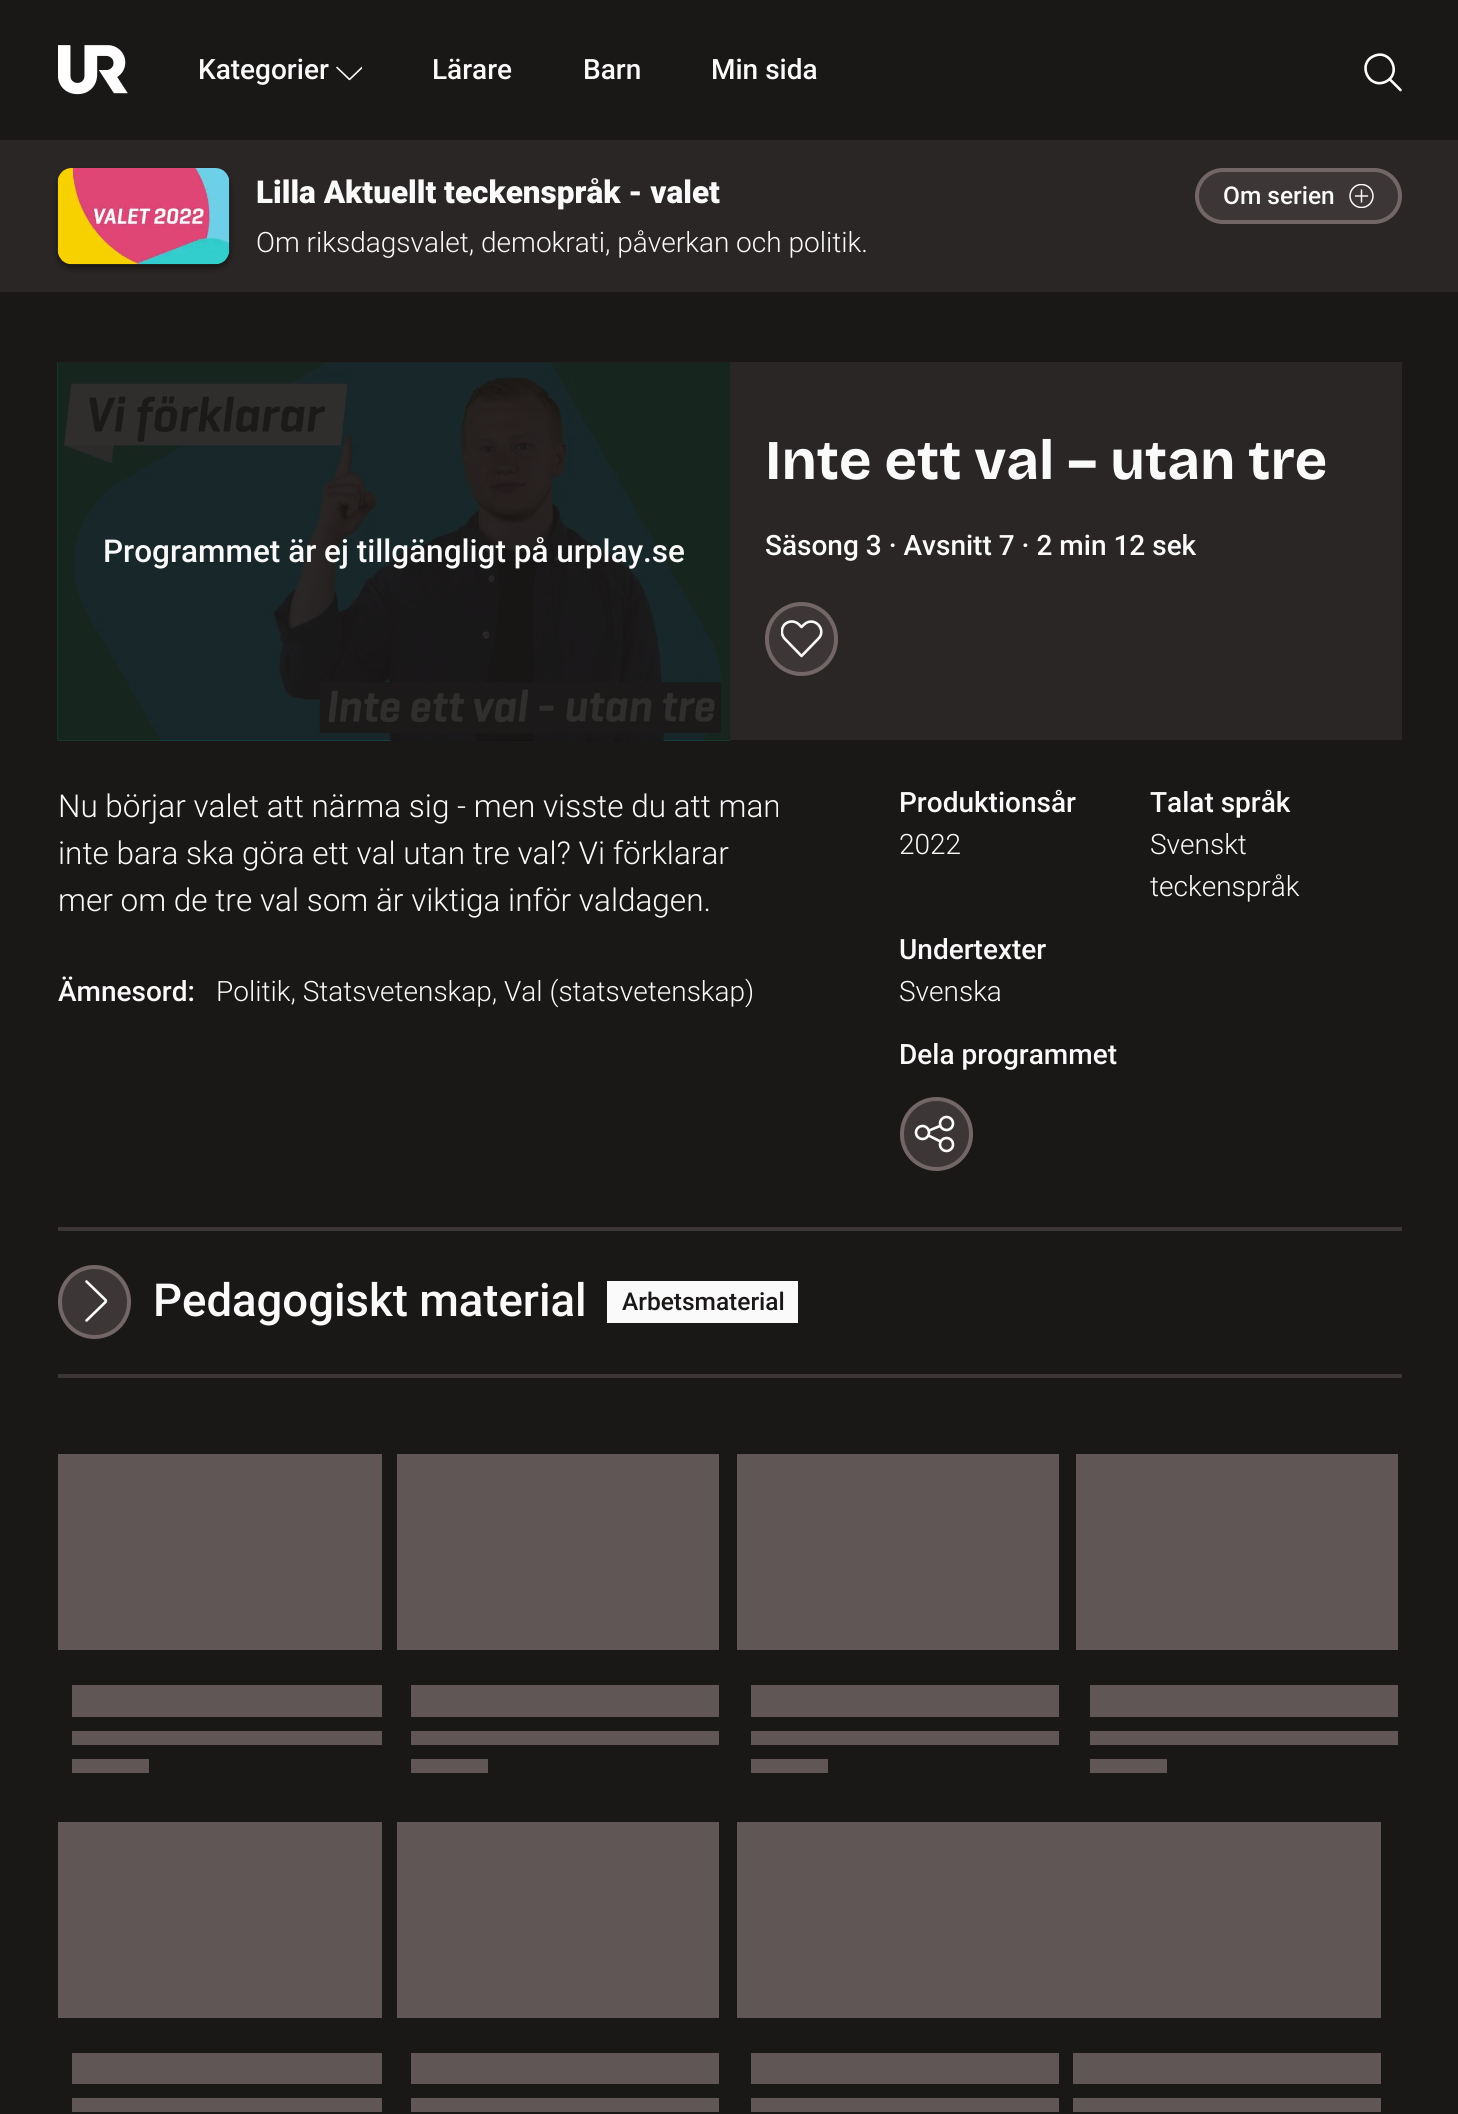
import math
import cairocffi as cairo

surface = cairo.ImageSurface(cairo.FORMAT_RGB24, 1458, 2114)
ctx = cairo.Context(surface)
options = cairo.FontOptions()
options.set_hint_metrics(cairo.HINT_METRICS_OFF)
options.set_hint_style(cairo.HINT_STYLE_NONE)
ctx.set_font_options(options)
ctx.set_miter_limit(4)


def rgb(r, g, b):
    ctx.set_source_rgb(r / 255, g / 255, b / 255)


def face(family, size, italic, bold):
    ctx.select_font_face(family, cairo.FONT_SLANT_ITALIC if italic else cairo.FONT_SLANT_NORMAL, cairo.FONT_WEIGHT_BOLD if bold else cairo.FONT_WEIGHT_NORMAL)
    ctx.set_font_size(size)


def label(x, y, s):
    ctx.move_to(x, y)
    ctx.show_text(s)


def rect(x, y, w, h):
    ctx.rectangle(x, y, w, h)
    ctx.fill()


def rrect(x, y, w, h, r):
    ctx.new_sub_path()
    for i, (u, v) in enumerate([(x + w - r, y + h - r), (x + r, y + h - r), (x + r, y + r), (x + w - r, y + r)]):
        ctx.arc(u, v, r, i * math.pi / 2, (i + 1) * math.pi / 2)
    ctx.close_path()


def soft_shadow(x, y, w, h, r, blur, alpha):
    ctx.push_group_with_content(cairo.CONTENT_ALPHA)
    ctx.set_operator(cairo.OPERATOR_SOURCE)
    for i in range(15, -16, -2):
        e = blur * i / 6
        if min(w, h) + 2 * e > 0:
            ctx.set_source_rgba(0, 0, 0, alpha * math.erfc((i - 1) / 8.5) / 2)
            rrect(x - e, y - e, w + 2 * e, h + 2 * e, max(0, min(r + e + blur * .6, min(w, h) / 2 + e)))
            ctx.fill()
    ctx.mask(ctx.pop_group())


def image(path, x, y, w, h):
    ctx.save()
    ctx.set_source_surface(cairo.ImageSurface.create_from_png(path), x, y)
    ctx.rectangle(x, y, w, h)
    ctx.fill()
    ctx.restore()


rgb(26, 23, 23)
ctx.paint()
image('image0.png', 58, 45, 70, 50)
face('Roboto Medium', 28, 0, 0)
rgb(250, 250, 250)
label(198, 79, 'Kategorier')
ctx.save()
ctx.rectangle(336, 60, 26, 26)
ctx.clip()
ctx.new_path()
ctx.move_to(337, 67.5)
ctx.line_to(349, 79)
ctx.curve_to(349, 79.5, 350, 79.5, 350, 79)
ctx.line_to(362, 67.5)
ctx.set_line_width(1.6)
ctx.set_line_cap(cairo.LINE_CAP_ROUND)
ctx.set_line_join(cairo.LINE_JOIN_ROUND)
ctx.stroke()
ctx.restore()
label(432, 79, 'Lärare')
label(583, 79, 'Barn')
label(711, 79, 'Min sida')
ctx.new_path()
ctx.move_to(1374, 56)
ctx.curve_to(1391, 48.5, 1402.5, 74.5, 1385, 82)
ctx.curve_to(1368, 89, 1357, 63, 1374, 56)
ctx.close_path()
ctx.move_to(1389.5, 79)
ctx.line_to(1400.5, 90)
rgb(255, 255, 255)
ctx.set_line_width(2.6)
ctx.set_line_cap(cairo.LINE_CAP_ROUND)
ctx.set_line_join(cairo.LINE_JOIN_ROUND)
ctx.stroke()
rgb(43, 38, 38)
rect(0, 140, 1458, 152)
rgb(0, 0, 0)
soft_shadow(58, 172, 171, 96, 14, 3.5, 0.5)
image('image1.png', 57, 168, 173, 97)
face('Roboto Black', 31.5, 0, 0)
rgb(250, 250, 250)
label(256, 203, 'Lilla Aktuellt teckenspråk - valet')
face('Roboto Light', 28, 0, 0)
label(256, 252, 'Om riksdagsvalet, demokrati, påverkan och politik.')
rgb(61, 54, 54)
rrect(1197, 170, 203, 52, 26)
ctx.fill_preserve()
rgb(115, 102, 102)
ctx.set_line_width(4)
ctx.set_line_cap(cairo.LINE_CAP_BUTT)
ctx.set_line_join(cairo.LINE_JOIN_MITER)
ctx.stroke()
face('Roboto Medium', 24.5, 0, 0)
rgb(250, 250, 250)
label(1223, 204, 'Om serien')
ctx.new_path()
ctx.move_to(1355.5, 196)
ctx.line_to(1367.5, 196)
ctx.move_to(1361.5, 190)
ctx.line_to(1361.5, 202)
ctx.set_line_width(1.5)
ctx.set_line_cap(cairo.LINE_CAP_ROUND)
ctx.set_line_join(cairo.LINE_JOIN_ROUND)
ctx.stroke()
ctx.save()
ctx.rectangle(1349, 184, 25, 24)
ctx.clip()
ctx.arc(1361.5, 196, 11.5, 0, 2 * math.pi)
ctx.set_line_cap(cairo.LINE_CAP_BUTT)
ctx.set_line_join(cairo.LINE_JOIN_MITER)
ctx.stroke()
ctx.restore()
rgb(43, 38, 38)
rect(730, 362, 672, 378)
rgb(31, 28, 28)
rect(58, 362, 672, 378)
image('image2.png', 57, 362, 673, 379)
face('Roboto Medium', 31.5, 0, 0)
rgb(250, 250, 250)
label(103, 562, 'Programmet är ej tillgängligt på urplay.se')
face('Bricolage Grotesque ExtraBold', 56, 0, 0)
label(765, 479, 'Inte ett val – utan tre')
face('Roboto Medium', 28, 0, 0)
label(765, 555, 'Säsong 3 · Avsnitt 7 · 2 min 12 sek')
rgb(61, 54, 54)
rrect(767, 604, 69, 70, 34.5)
ctx.fill_preserve()
rgb(115, 102, 102)
ctx.set_line_width(4)
ctx.set_line_cap(cairo.LINE_CAP_BUTT)
ctx.set_line_join(cairo.LINE_JOIN_MITER)
ctx.stroke()
ctx.save()
ctx.rectangle(781, 618, 42, 42)
ctx.clip()
ctx.new_path()
ctx.move_to(801.5, 656)
ctx.line_to(784.5, 638.5)
ctx.curve_to(781, 634.5, 781, 628.5, 784.5, 624.5)
ctx.curve_to(788.5, 620.5, 795, 620.5, 799, 624.5)
ctx.line_to(801.5, 627)
ctx.curve_to(803, 625.5, 805, 623.5, 807, 622.5)
ctx.curve_to(817, 618, 826, 631, 818.5, 638.5)
ctx.close_path()
rgb(250, 250, 250)
ctx.set_line_width(2.6)
ctx.set_line_cap(cairo.LINE_CAP_ROUND)
ctx.set_line_join(cairo.LINE_JOIN_ROUND)
ctx.stroke()
ctx.restore()
rgb(61, 54, 54)
rect(58, 1374, 1344, 4)
face('Roboto Light', 31.5, 0, 0)
rgb(250, 250, 250)
label(58, 817, 'Nu börjar valet att närma sig - men visste du att man')
label(58, 864, 'inte bara ska göra ett val utan tre val? Vi förklarar')
label(58, 911, 'mer om de tre val som är viktiga inför valdagen.')
face('Roboto Medium', 28, 0, 0)
label(58, 1001, 'Ämnesord:')
face('Roboto Light', 28, 0, 0)
label(216, 1001, 'Politik, Statsvetenskap, Val (statsvetenskap)')
face('Roboto Medium', 28, 0, 0)
label(899, 812, 'Produktionsår')
face('Roboto Light', 28, 0, 0)
label(899, 854, '2022')
face('Roboto Medium', 28, 0, 0)
label(1150, 812, 'Talat språk')
face('Roboto Light', 28, 0, 0)
label(1150, 854, 'Svenskt')
label(1150, 896, 'teckenspråk')
face('Roboto Medium', 28, 0, 0)
label(899, 959, 'Undertexter')
face('Roboto Light', 28, 0, 0)
label(899, 1001, 'Svenska')
face('Roboto Medium', 28, 0, 0)
label(899, 1064, 'Dela programmet')
rgb(61, 54, 54)
rrect(902, 1099, 69, 70, 34.5)
ctx.fill_preserve()
rgb(115, 102, 102)
ctx.stroke()
ctx.arc(922.5, 1132.5, 6.5, 0, 2 * math.pi)
rgb(255, 255, 255)
ctx.set_line_width(2.6)
ctx.stroke()
ctx.arc(946.5, 1123.5, 6.5, 0, 2 * math.pi)
ctx.stroke()
ctx.arc(946.5, 1144.5, 6.5, 0, 2 * math.pi)
ctx.stroke()
ctx.new_path()
ctx.move_to(929, 1130.5)
ctx.line_to(940, 1126)
ctx.move_to(928.5, 1135.5)
ctx.line_to(940.5, 1141.5)
rgb(250, 250, 250)
ctx.set_line_cap(cairo.LINE_CAP_ROUND)
ctx.set_line_join(cairo.LINE_JOIN_ROUND)
ctx.stroke()
rgb(61, 54, 54)
rect(58, 1227, 1344, 4)
rrect(60, 1267, 69, 70, 34.5)
ctx.fill_preserve()
rgb(115, 102, 102)
ctx.set_line_width(4)
ctx.set_line_cap(cairo.LINE_CAP_BUTT)
ctx.set_line_join(cairo.LINE_JOIN_MITER)
ctx.stroke()
ctx.save()
ctx.new_path()
ctx.move_to(116, 1280.5)
ctx.line_to(116, 1322.5)
ctx.line_to(74, 1322.5)
ctx.line_to(74, 1280.5)
ctx.close_path()
ctx.clip()
ctx.new_path()
ctx.move_to(86.5, 1320.5)
ctx.line_to(105.5, 1302)
ctx.curve_to(106, 1301.5, 106, 1300.5, 105.5, 1300)
ctx.line_to(86.5, 1281.5)
rgb(255, 255, 255)
ctx.set_line_width(2.6)
ctx.set_line_cap(cairo.LINE_CAP_ROUND)
ctx.set_line_join(cairo.LINE_JOIN_ROUND)
ctx.stroke()
ctx.restore()
face('Roboto Medium', 45.5, 0, 0)
rgb(250, 250, 250)
label(153, 1316, 'Pedagogiskt material')
rect(607, 1281, 191, 42)
face('Roboto Medium', 24.5, 0, 0)
rgb(26, 23, 23)
label(622, 1310, 'Arbetsmaterial')
rgb(97, 86, 86)
rect(58, 1454, 324, 196)
rect(72, 1685, 310, 32)
rect(72, 1731, 310, 14)
rect(72, 1759, 77, 14)
rect(397, 1454, 322, 196)
rect(411, 1685, 308, 32)
rect(411, 1731, 308, 14)
rect(411, 1759, 77, 14)
rect(737, 1454, 322, 196)
rect(751, 1685, 308, 32)
rect(751, 1731, 308, 14)
rect(751, 1759, 77, 14)
rect(1076, 1454, 322, 196)
rect(1090, 1685, 308, 32)
rect(1090, 1731, 308, 14)
rect(1090, 1759, 77, 14)
rect(58, 1822, 324, 196)
rect(72, 2053, 310, 31)
rect(72, 2098, 310, 14)
rect(397, 1822, 322, 196)
rect(411, 2053, 308, 31)
rect(411, 2098, 308, 14)
rect(737, 1822, 644, 196)
rect(751, 2053, 308, 31)
rect(751, 2098, 308, 14)
rect(1073, 2053, 308, 31)
rect(1073, 2098, 308, 14)
surface.write_to_png('render.png')
